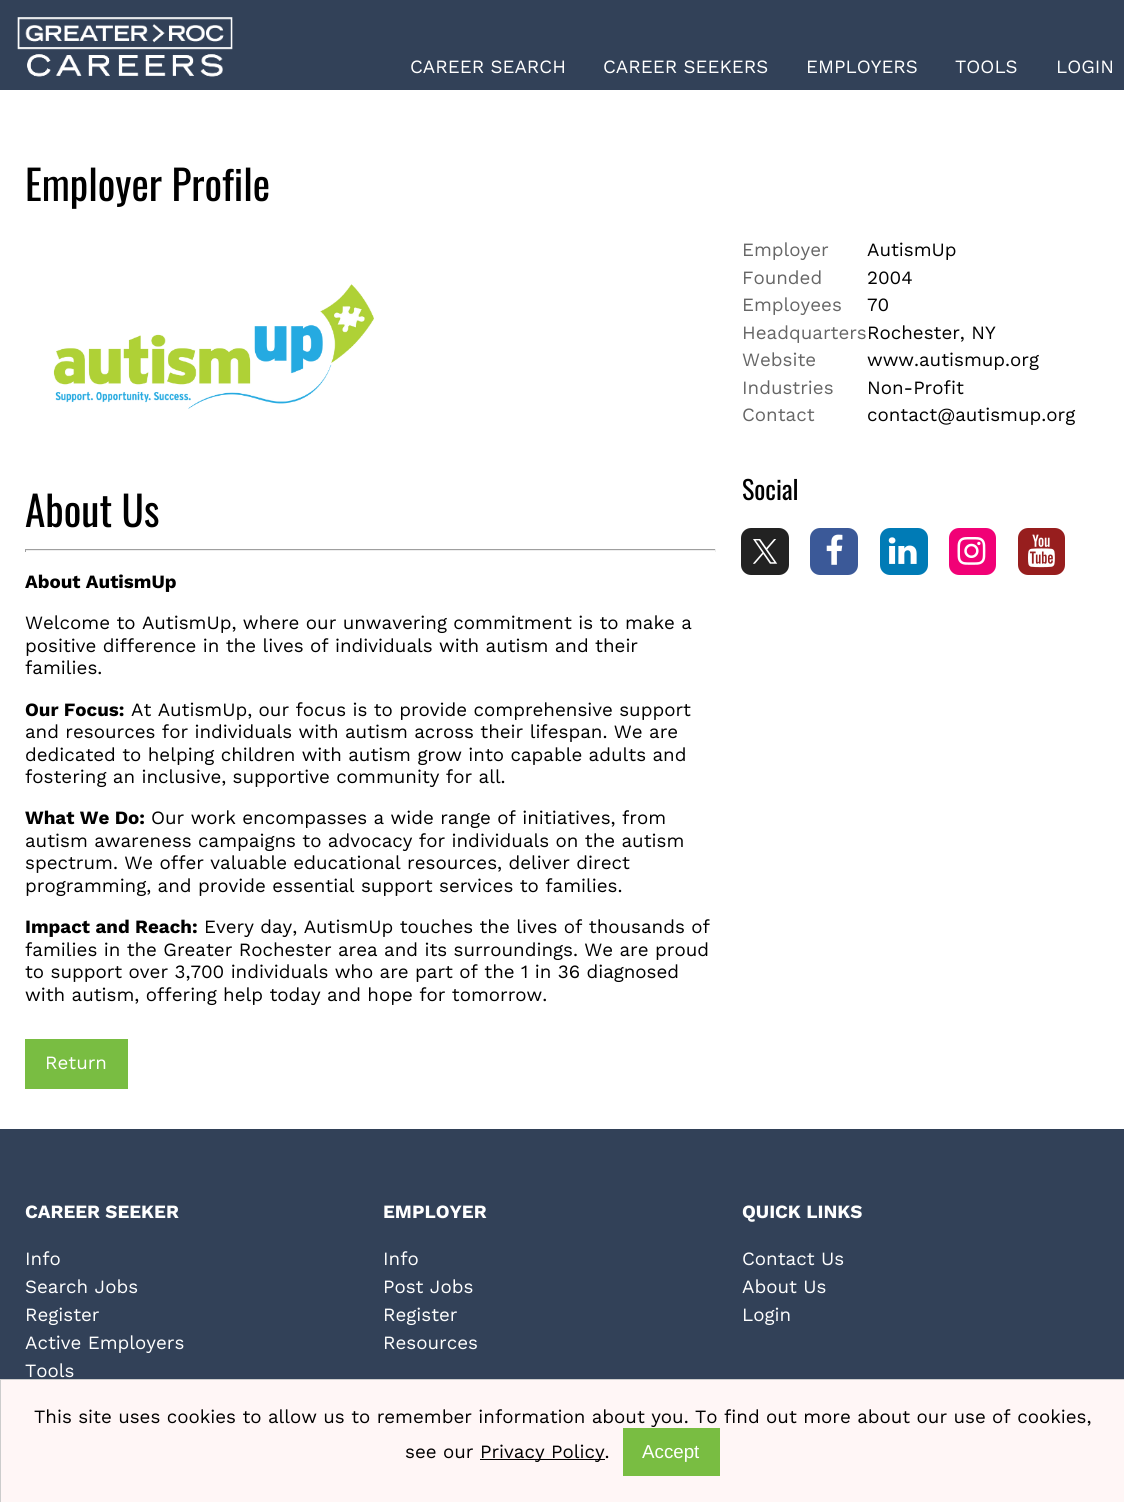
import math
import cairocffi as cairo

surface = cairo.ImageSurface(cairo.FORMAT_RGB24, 1124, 1502)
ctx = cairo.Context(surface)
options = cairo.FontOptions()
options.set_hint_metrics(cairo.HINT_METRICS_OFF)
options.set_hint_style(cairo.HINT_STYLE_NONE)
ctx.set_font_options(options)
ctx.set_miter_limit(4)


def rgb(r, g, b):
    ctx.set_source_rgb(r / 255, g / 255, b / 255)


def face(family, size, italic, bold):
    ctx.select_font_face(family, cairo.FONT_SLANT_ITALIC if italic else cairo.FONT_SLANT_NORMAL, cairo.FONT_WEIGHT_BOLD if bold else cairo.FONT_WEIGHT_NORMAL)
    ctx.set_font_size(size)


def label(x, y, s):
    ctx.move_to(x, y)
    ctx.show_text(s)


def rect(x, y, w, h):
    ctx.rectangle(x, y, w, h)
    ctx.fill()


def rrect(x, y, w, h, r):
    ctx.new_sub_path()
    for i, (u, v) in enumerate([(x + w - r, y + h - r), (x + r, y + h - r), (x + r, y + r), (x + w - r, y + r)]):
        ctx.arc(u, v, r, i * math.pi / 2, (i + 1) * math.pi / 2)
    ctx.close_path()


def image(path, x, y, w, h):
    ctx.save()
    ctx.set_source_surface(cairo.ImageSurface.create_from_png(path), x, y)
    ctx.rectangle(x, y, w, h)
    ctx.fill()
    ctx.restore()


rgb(50, 65, 88)
ctx.paint()
image('image0.png', 17, 17, 216, 60)
face('Work Sans', 18.75, 0, 0)
rgb(255, 255, 255)
label(410, 73, 'CAREER SEARCH')
label(603, 73, 'CAREER SEEKERS')
label(806, 73, 'EMPLOYERS')
label(955, 73, 'TOOLS')
label(1056, 73, 'LOGIN')
rect(0, 90, 1124, 1039)
face('Oswald', 41.25, 0, 0)
rgb(0, 0, 0)
label(25, 201, 'Employer Profile')
face('Work Sans', 18.75, 0, 0)
rgb(102, 102, 102)
label(742, 256, 'Employer')
rgb(0, 0, 0)
label(867, 256, 'AutismUp')
rgb(102, 102, 102)
label(742, 284, 'Founded')
rgb(0, 0, 0)
label(867, 284, '2004')
rgb(102, 102, 102)
label(742, 311, 'Employees')
rgb(0, 0, 0)
label(867, 311, '70')
rgb(102, 102, 102)
label(742, 339, 'Headquarters')
rgb(0, 0, 0)
label(867, 339, 'Rochester, NY')
rgb(102, 102, 102)
label(742, 366, 'Website')
rgb(0, 0, 0)
label(867, 366, 'www.autismup.org')
rgb(102, 102, 102)
label(742, 394, 'Industries')
rgb(0, 0, 0)
label(867, 394, 'Non-Profit')
rgb(102, 102, 102)
label(742, 421, 'Contact')
rgb(0, 0, 0)
label(867, 421, 'contact@autismup.org')
face('Oswald', 26, 0, 0)
label(742, 500, 'Social')
rgb(34, 34, 34)
rrect(741, 528, 48, 47, 10)
ctx.fill()
image('image1.png', 753, 539, 25, 25)
rgb(59, 89, 152)
rrect(810, 528, 48, 47, 10)
ctx.fill()
image('image2.png', 826, 534, 17, 31)
rgb(0, 123, 182)
rrect(880, 528, 48, 47, 10)
ctx.fill()
image('image3.png', 888, 537, 29, 27)
rgb(241, 1, 118)
rrect(949, 528, 47, 47, 10)
ctx.fill()
image('image4.png', 957, 537, 29, 28)
rgb(151, 30, 30)
rrect(1018, 528, 47, 47, 10)
ctx.fill()
image('image5.png', 1028, 534, 27, 34)
image('image6.png', 53, 284, 321, 125)
face('Oswald', 41.25, 0, 0)
rgb(0, 0, 0)
label(25, 527, 'About Us')
rgb(159, 159, 159)
rect(25, 549, 691, 1)
rgb(238, 238, 238)
rect(715, 549, 1, 3)
rect(25, 550, 691, 1)
rgb(159, 159, 159)
rect(25, 549, 1, 3)
face('Work Sans', 18.75, 0, 1)
rgb(0, 0, 0)
label(25, 588, 'About AutismUp')
face('Work Sans', 18.75, 0, 0)
label(25, 629, 'Welcome to AutismUp, where our unwavering commitment is to make a')
label(25, 652, 'positive difference in the lives of individuals with autism and their')
label(25, 674, 'families.')
face('Work Sans', 18.75, 0, 1)
label(25, 716, 'Our Focus:')
face('Work Sans', 18.75, 0, 0)
label(131, 716, 'At AutismUp, our focus is to provide comprehensive support')
label(25, 738, 'and resources for individuals with autism across their lifespan. We are')
label(25, 761, 'dedicated to helping children with autism grow into capable adults and')
label(25, 783, 'fostering an inclusive, supportive community for all.')
face('Work Sans', 18.75, 0, 1)
label(25, 824, 'What We Do:')
face('Work Sans', 18.75, 0, 0)
label(151, 824, 'Our work encompasses a wide range of initiatives, from')
label(25, 847, 'autism awareness campaigns to advocacy for individuals on the autism')
label(25, 869, 'spectrum. We offer valuable educational resources, deliver direct')
label(25, 892, 'programming, and provide essential support services to families.')
face('Work Sans', 18.75, 0, 1)
label(25, 933, 'Impact and Reach:')
face('Work Sans', 18.75, 0, 0)
label(204, 933, 'Every day, AutismUp touches the lives of thousands of')
label(25, 956, 'families in the Greater Rochester area and its surroundings. We are proud')
label(25, 978, 'to support over 3,700 individuals who are part of the 1 in 36 diagnosed')
label(25, 1001, 'with autism, offering help today and hope for tomorrow.')
rgb(121, 189, 66)
ctx.rectangle(26.5, 1040.5, 100, 47)
ctx.fill_preserve()
ctx.set_line_width(3)
ctx.stroke()
rgb(255, 255, 255)
label(45, 1069, 'Return')
face('Work Sans', 18.75, 0, 1)
label(25, 1218, 'CAREER SEEKER')
face('Work Sans', 18.75, 0, 0)
label(25, 1265, 'Info')
label(25, 1293, 'Search Jobs')
label(25, 1321, 'Register')
label(25, 1349, 'Active Employers')
label(25, 1377, 'Tools')
face('Work Sans', 18.75, 0, 1)
label(383, 1218, 'EMPLOYER')
face('Work Sans', 18.75, 0, 0)
label(383, 1265, 'Info')
label(383, 1293, 'Post Jobs')
label(383, 1321, 'Register')
label(383, 1349, 'Resources')
face('Work Sans', 18.75, 0, 1)
label(742, 1218, 'QUICK LINKS')
face('Work Sans', 18.75, 0, 0)
label(742, 1265, 'Contact Us')
label(742, 1293, 'About Us')
label(742, 1321, 'Login')
rgb(255, 246, 246)
ctx.rectangle(0.5, 1379.5, 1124, 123)
ctx.fill_preserve()
rgb(204, 204, 204)
ctx.set_line_width(1)
ctx.stroke()
rgb(0, 0, 0)
label(34, 1423, 'This site uses cookies to allow us to remember information about you. To find out more about our use of cookies,')
label(405, 1458, 'see our')
rect(480, 1459, 125, 1)
label(480, 1458, 'Privacy Policy.')
rgb(121, 189, 66)
ctx.rectangle(624.5, 1429.5, 94, 45)
ctx.fill_preserve()
ctx.set_line_width(3)
ctx.stroke()
face('Liberation Sans', 18.75, 0, 0)
rgb(255, 255, 255)
label(642, 1458, 'Accept')
surface.write_to_png('render.png')
